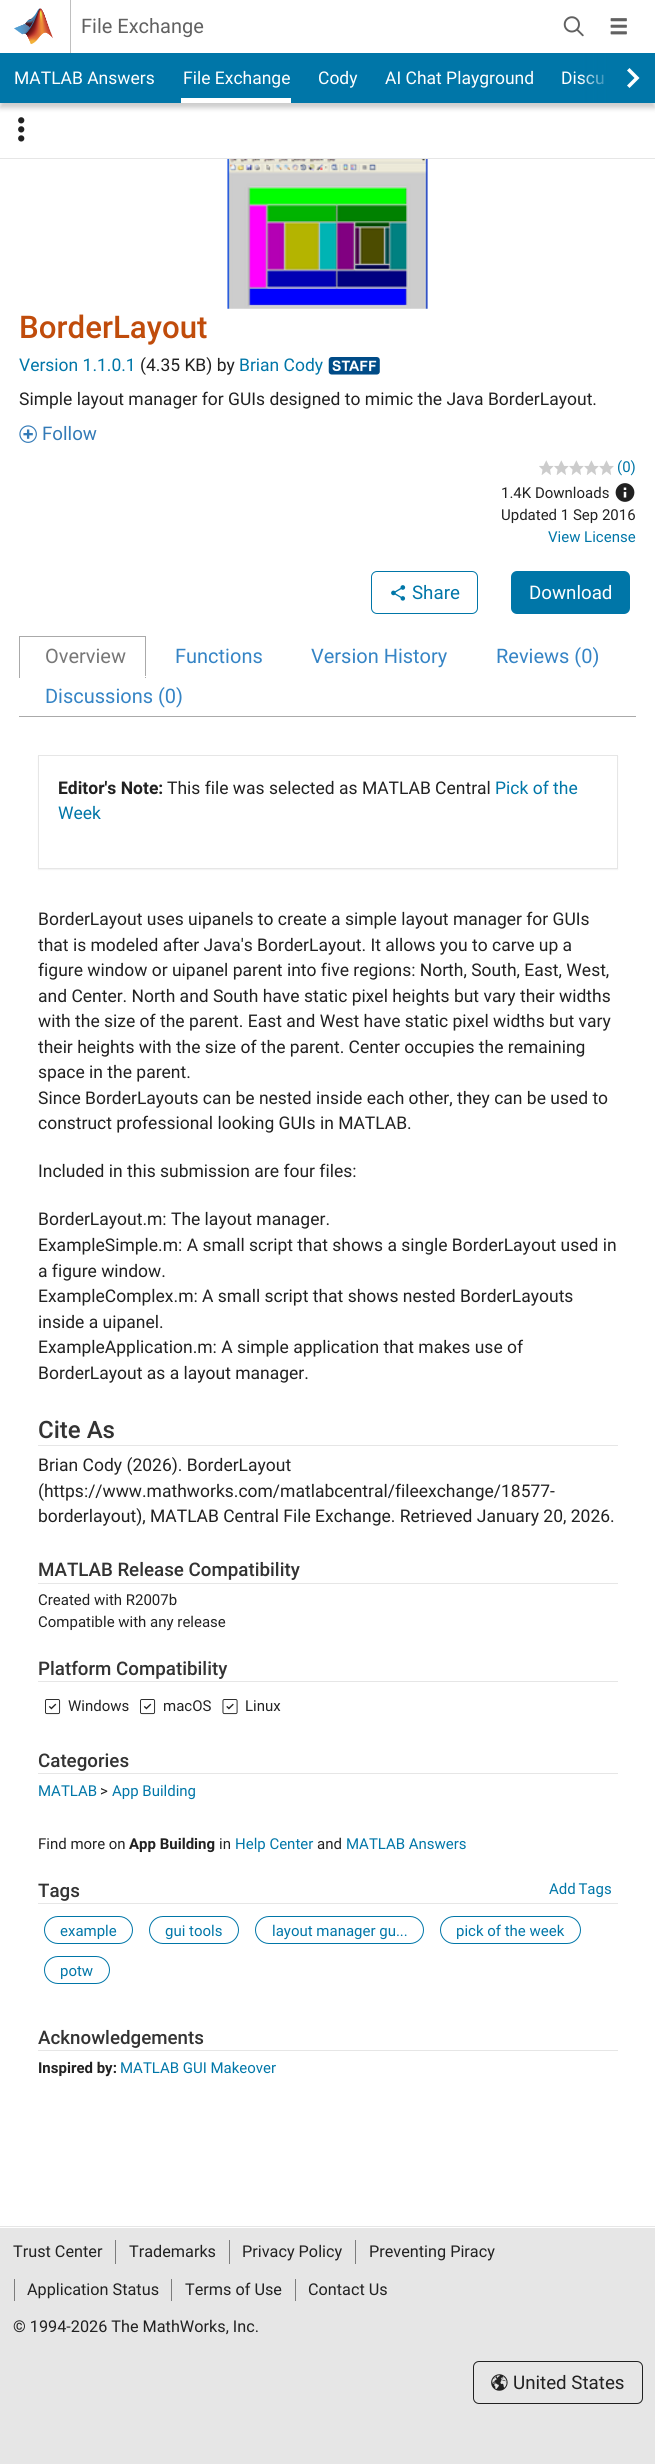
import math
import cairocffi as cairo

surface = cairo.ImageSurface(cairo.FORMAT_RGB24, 655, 2464)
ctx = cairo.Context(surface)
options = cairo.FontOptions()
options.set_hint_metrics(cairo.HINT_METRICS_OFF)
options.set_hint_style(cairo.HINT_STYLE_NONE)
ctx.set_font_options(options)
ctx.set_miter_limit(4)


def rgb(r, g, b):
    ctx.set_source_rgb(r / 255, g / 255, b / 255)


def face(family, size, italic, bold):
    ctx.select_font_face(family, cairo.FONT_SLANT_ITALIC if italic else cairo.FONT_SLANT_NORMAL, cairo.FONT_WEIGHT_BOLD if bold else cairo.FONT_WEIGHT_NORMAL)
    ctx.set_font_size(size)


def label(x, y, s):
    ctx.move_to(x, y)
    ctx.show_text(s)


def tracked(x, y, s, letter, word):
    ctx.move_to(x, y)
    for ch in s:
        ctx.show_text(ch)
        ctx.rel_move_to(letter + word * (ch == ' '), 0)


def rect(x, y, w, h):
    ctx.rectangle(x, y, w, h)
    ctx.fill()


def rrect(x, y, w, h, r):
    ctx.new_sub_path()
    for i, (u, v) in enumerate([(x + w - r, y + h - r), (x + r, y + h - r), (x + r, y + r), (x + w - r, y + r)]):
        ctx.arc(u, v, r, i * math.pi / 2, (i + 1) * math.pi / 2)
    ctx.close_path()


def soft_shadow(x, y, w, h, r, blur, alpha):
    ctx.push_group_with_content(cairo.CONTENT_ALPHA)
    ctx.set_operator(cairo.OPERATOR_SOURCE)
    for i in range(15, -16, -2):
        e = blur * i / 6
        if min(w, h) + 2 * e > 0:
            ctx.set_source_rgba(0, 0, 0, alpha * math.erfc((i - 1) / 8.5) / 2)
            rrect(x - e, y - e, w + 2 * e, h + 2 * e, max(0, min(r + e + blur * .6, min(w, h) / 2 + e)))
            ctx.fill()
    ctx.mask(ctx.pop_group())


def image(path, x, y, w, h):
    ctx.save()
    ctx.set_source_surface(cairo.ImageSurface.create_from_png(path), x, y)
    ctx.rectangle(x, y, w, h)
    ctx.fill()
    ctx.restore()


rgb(230, 230, 230)
ctx.paint()
rgb(255, 255, 255)
rect(0, 0, 655, 53)
rgb(191, 191, 191)
rect(70, 0, 1, 53)
image('image0.png', 14, 8, 39, 37)
face('Roboto', 20, 0, 0)
rgb(97, 97, 97)
label(81, 33, 'File Exchange')
image('image1.png', 563, 16, 21, 21)
image('image2.png', 610, 18, 17, 17)
rgb(255, 255, 255)
rect(0, 103, 655, 55)
rgb(0, 0, 0)
soft_shadow(0, 58, 655, 50, 0, 2.5, 0.2)
rgb(0, 118, 168)
rect(0, 53, 611, 50)
face('Roboto', 17.5, 0, 0)
rgb(255, 255, 255)
label(14, 84, 'MATLAB Answers')
rect(181, 98, 110, 5)
label(183, 84, 'File Exchange')
label(318, 84, 'Cody')
label(385, 84, 'AI Chat Playground')
label(561, 84, 'Discu')
gradient = cairo.LinearGradient(580, 78, 643, 78)
gradient.add_color_stop_rgba(0, 0, 0.463, 0.659, 0)
gradient.add_color_stop_rgba(0.5, 0, 0.463, 0.659, 1)
gradient.add_color_stop_rgba(1, 0, 0.463, 0.659, 1)
ctx.set_source(gradient)
rect(581, 53, 59, 50)
rgb(255, 255, 255)
ctx.new_path()
ctx.move_to(629.5, 68)
ctx.line_to(627, 70.5)
ctx.line_to(634.5, 78)
ctx.line_to(627, 85.5)
ctx.line_to(629.5, 88)
ctx.line_to(639.5, 78)
ctx.close_path()
ctx.fill()
rgb(0, 118, 168)
rect(640, 53, 15, 50)
image('image3.png', 18, 117, 7, 25)
rgb(255, 255, 255)
rect(0, 159, 655, 2069)
rgb(230, 230, 230)
rect(0, 2226, 655, 1)
image('image4.png', 227, 159, 201, 150)
face('Roboto Medium', 31.25, 0, 0)
rgb(192, 76, 11)
label(19, 338, 'BorderLayout')
face('Roboto', 17.5, 0, 0)
rgb(0, 118, 168)
label(19, 371, 'Version 1.1.0.1')
rgb(33, 33, 33)
label(140, 371, '(4.35 KB) by')
rgb(0, 118, 168)
label(239, 371, 'Brian Cody')
image('image5.png', 328, 357, 52, 18)
rgb(33, 33, 33)
label(19, 405, 'Simple layout manager for GUIs designed to mimic the Java BorderLayout.')
image('image6.png', 19, 425, 18, 18)
face('Roboto', 18.75, 0, 0)
rgb(51, 122, 183)
label(42, 440, 'Follow')
image('image7.png', 539, 460, 75, 15)
face('Roboto', 15, 0, 0)
rgb(0, 118, 168)
label(617, 472, '(0)')
rgb(33, 33, 33)
label(501, 498, '1.4K Downloads')
image('image8.png', 615, 483, 20, 19)
label(501, 520, 'Updated 1 Sep 2016')
rgb(0, 118, 168)
label(548, 542, 'View License')
rrect(371.5, 571.5, 106, 42, 5.5)
ctx.set_line_width(1)
ctx.stroke()
image('image9.png', 391, 585, 15, 16)
face('Roboto', 18.75, 0, 0)
label(412, 599, 'Share')
rrect(511, 571, 119, 43, 6)
ctx.fill()
rgb(255, 255, 255)
label(529, 599, 'Download')
rgb(170, 170, 170)
rect(19, 636, 127, 1)
rect(145, 636, 1, 42)
rgb(255, 255, 255)
rect(145, 676, 1, 1)
rgb(170, 170, 170)
rect(19, 636, 1, 42)
face('Roboto', 20, 0, 0)
rgb(119, 119, 119)
label(45, 663, 'Overview')
rgb(53, 132, 197)
label(175, 663, 'Functions')
label(311, 663, 'Version History')
label(496, 663, 'Reviews (0)')
label(45, 703, 'Discussions (0)')
rgb(170, 170, 170)
rect(19, 716, 617, 1)
rgb(0, 0, 0)
soft_shadow(38, 756, 580, 114, 0, 0.5, 0.05)
rgb(255, 255, 255)
ctx.rectangle(38.5, 755.5, 579, 113)
ctx.fill_preserve()
rgb(230, 230, 230)
ctx.stroke()
face('Roboto', 17.5, 0, 1)
rgb(33, 33, 33)
label(58, 794, 'Editor\'s Note:')
face('Roboto', 17.5, 0, 0)
label(167, 794, 'This file was selected as MATLAB Central')
rgb(0, 118, 168)
label(495, 794, 'Pick of the')
label(58, 819, 'Week')
rgb(33, 33, 33)
label(38, 925, 'BorderLayout uses uipanels to create a simple layout manager for GUIs')
label(38, 951, 'that is modeled after Java\'s BorderLayout. It allows you to carve up a')
label(38, 976, 'figure window or uipanel parent into five regions: North, South, East, West,')
label(38, 1002, 'and Center. North and South have static pixel heights but vary their widths')
label(38, 1027, 'with the size of the parent. East and West have static pixel widths but vary')
label(38, 1053, 'their heights with the size of the parent. Center occupies the remaining')
label(38, 1078, 'space in the parent.')
label(38, 1104, 'Since BorderLayouts can be nested inside each other, they can be used to')
label(38, 1129, 'construct professional looking GUIs in MATLAB.')
label(38, 1177, 'Included in this submission are four files:')
label(38, 1225, 'BorderLayout.m: The layout manager.')
label(38, 1251, 'ExampleSimple.m: A small script that shows a single BorderLayout used in')
label(38, 1277, 'a figure window.')
label(38, 1302, 'ExampleComplex.m: A small script that shows nested BorderLayouts')
label(38, 1328, 'inside a uipanel.')
label(38, 1353, 'ExampleApplication.m: A simple application that makes use of')
label(38, 1379, 'BorderLayout as a layout manager.')
rgb(230, 230, 230)
rect(38, 1445, 580, 1)
face('Roboto Medium', 24, 0, 0)
rgb(51, 51, 51)
label(38, 1438, 'Cite As')
face('Roboto', 17.5, 0, 0)
rgb(33, 33, 33)
label(38, 1471, 'Brian Cody (2026). BorderLayout')
label(38, 1497, '(https://www.mathworks.com/matlabcentral/fileexchange/18577-')
label(38, 1522, 'borderlayout), MATLAB Central File Exchange. Retrieved January 20, 2026.')
rgb(230, 230, 230)
rect(38, 1583, 580, 1)
face('Roboto Medium', 18.75, 0, 0)
rgb(51, 51, 51)
label(38, 1576, 'MATLAB Release Compatibility')
face('Roboto', 15, 0, 0)
rgb(33, 33, 33)
label(38, 1605, 'Created with R2007b')
label(38, 1627, 'Compatible with any release')
rgb(230, 230, 230)
rect(38, 1681, 580, 1)
face('Roboto Medium', 18.75, 0, 0)
rgb(51, 51, 51)
label(38, 1675, 'Platform Compatibility')
image('image10.png', 45, 1699, 16, 16)
face('Roboto', 15, 0, 0)
rgb(33, 33, 33)
label(68, 1711, 'Windows')
image('image10.png', 140, 1699, 16, 16)
label(163, 1711, 'macOS')
image('image11.png', 222, 1699, 16, 16)
label(245, 1711, 'Linux')
rgb(230, 230, 230)
rect(38, 1773, 580, 1)
face('Roboto Medium', 18.75, 0, 0)
rgb(51, 51, 51)
label(38, 1767, 'Categories')
face('Roboto', 15, 0, 0)
rgb(0, 118, 168)
label(38, 1796, 'MATLAB')
rgb(33, 33, 33)
label(100, 1796, '>')
rgb(0, 118, 168)
label(112, 1796, 'App Building')
rgb(33, 33, 33)
label(38, 1849, 'Find more on')
face('Roboto', 15, 0, 1)
label(129, 1849, 'App Building')
face('Roboto', 15, 0, 0)
label(219, 1849, 'in')
rgb(0, 118, 168)
label(235, 1849, 'Help Center')
rgb(33, 33, 33)
label(317, 1849, 'and')
rgb(0, 118, 168)
label(346, 1849, 'MATLAB Answers')
rgb(230, 230, 230)
rect(38, 1903, 580, 1)
face('Roboto Medium', 18.75, 0, 0)
rgb(51, 51, 51)
label(38, 1897, 'Tags')
face('Roboto', 15, 0, 0)
rgb(0, 118, 168)
tracked(549, 1894, 'Add Tags', 0, -1)
rrect(44.5, 1916.5, 88, 27, 13.5)
ctx.stroke()
label(60, 1936, 'example')
rrect(149.5, 1916.5, 89, 27, 13.5)
ctx.stroke()
label(165, 1936, 'gui tools')
rrect(255.5, 1916.5, 168, 27, 13.5)
ctx.stroke()
label(272, 1936, 'layout manager gu...')
rrect(440.5, 1916.5, 140, 27, 13.5)
ctx.stroke()
label(456, 1936, 'pick of the week')
rrect(44.5, 1956.5, 65, 27, 13.5)
ctx.stroke()
label(60, 1976, 'potw')
rgb(230, 230, 230)
rect(38, 2050, 580, 1)
face('Roboto Medium', 18.75, 0, 0)
rgb(51, 51, 51)
label(38, 2044, 'Acknowledgements')
face('Roboto', 15, 0, 1)
rgb(33, 33, 33)
label(38, 2073, 'Inspired by:')
face('Roboto', 15, 0, 0)
rgb(0, 118, 168)
label(120, 2073, 'MATLAB GUI Makeover')
face('Roboto', 16.25, 0, 0)
rgb(33, 33, 33)
label(13, 2257, 'Trust Center')
rgb(125, 125, 125)
rect(115, 2240, 1, 24)
rgb(33, 33, 33)
label(129, 2257, 'Trademarks')
rgb(125, 125, 125)
rect(229, 2240, 1, 24)
rgb(33, 33, 33)
label(242, 2257, 'Privacy Policy')
rgb(125, 125, 125)
rect(355, 2240, 1, 24)
rgb(33, 33, 33)
label(369, 2257, 'Preventing Piracy')
rgb(125, 125, 125)
rect(14, 2279, 1, 22)
rgb(33, 33, 33)
label(27, 2295, 'Application Status')
rgb(125, 125, 125)
rect(171, 2279, 1, 22)
rgb(33, 33, 33)
label(185, 2295, 'Terms of Use')
rgb(125, 125, 125)
rect(295, 2279, 1, 22)
rgb(33, 33, 33)
label(308, 2295, 'Contact Us')
label(13, 2332, '© 1994-2026 The MathWorks, Inc.')
rrect(473.5, 2361.5, 169, 42, 5.5)
ctx.stroke()
image('image12.png', 491, 2374, 17, 17)
face('Roboto', 18.75, 0, 0)
label(513, 2389, 'United States')
surface.write_to_png('render.png')
